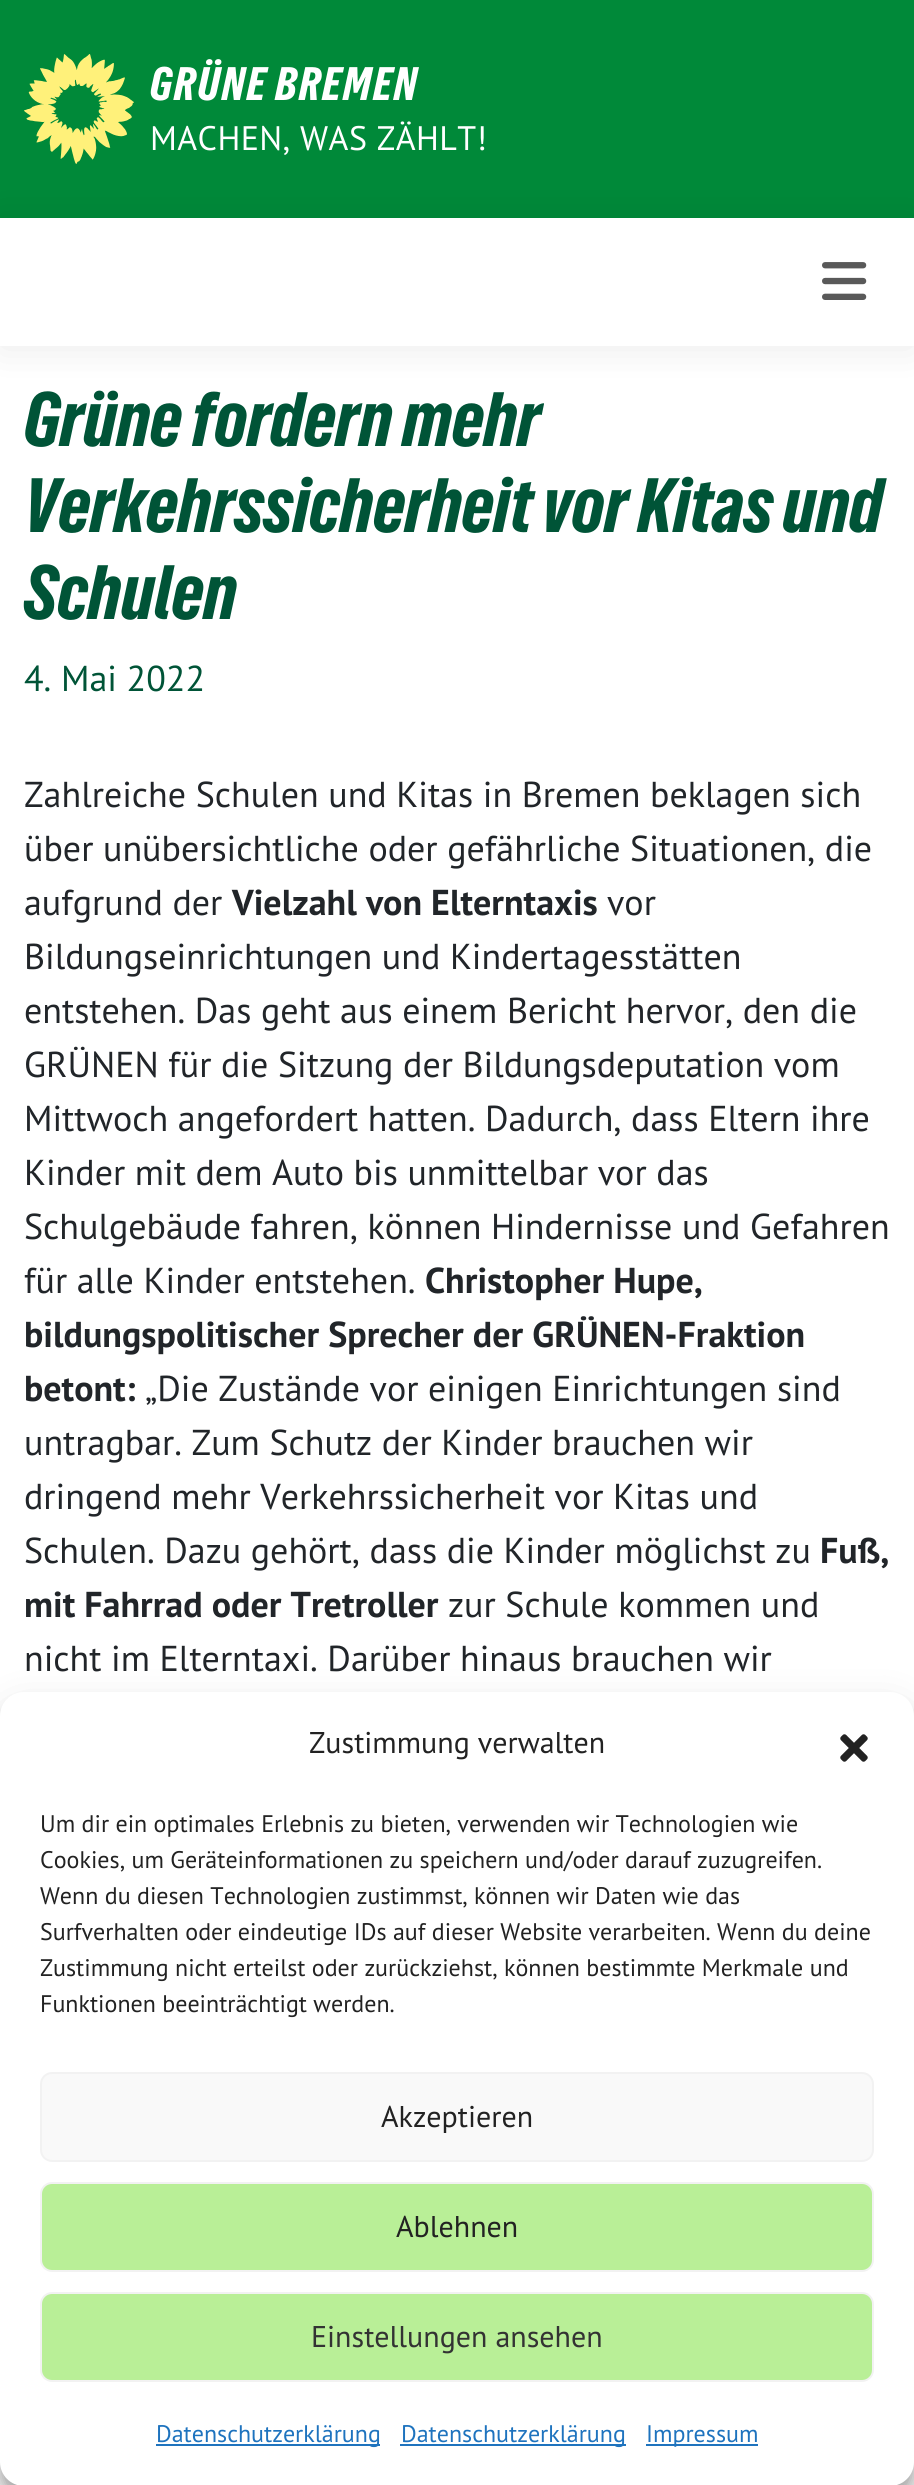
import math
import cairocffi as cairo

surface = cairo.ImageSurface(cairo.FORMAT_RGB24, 914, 2485)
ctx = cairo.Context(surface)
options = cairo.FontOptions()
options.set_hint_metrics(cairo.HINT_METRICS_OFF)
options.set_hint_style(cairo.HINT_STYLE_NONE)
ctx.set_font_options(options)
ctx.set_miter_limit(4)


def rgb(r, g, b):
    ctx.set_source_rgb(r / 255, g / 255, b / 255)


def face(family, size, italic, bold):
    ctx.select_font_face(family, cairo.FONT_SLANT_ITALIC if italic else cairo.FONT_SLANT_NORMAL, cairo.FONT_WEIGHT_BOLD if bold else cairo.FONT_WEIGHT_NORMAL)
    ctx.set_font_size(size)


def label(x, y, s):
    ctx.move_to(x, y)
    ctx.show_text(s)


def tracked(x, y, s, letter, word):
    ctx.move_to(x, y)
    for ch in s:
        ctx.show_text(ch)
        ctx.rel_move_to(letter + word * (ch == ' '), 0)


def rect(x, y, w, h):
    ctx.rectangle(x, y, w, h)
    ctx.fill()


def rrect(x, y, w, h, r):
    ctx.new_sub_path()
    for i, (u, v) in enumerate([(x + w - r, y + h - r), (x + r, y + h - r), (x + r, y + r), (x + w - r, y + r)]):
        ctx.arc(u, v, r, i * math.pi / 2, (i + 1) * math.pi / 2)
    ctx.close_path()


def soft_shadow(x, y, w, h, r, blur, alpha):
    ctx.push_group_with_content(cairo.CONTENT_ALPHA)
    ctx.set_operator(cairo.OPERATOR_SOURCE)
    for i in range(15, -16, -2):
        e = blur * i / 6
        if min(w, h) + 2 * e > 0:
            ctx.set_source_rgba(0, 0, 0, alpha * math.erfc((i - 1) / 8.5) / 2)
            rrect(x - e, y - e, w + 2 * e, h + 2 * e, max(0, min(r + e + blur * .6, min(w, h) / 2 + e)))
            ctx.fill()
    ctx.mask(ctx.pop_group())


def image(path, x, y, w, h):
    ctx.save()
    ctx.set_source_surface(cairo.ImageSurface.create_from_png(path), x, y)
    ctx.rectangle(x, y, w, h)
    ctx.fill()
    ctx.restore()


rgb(255, 255, 255)
ctx.paint()
rgb(0, 137, 57)
rect(0, 0, 914, 218)
image('image0.png', 24, 54, 110, 110)
face('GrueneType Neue', 44, 0, 0)
rgb(255, 255, 255)
tracked(150, 100, 'GRÜNE BREMEN', 2, 0)
face('PT Sans', 34, 0, 0)
tracked(150, 150, 'MACHEN, WAS ZÄHLT!', 0.4, 0)
ctx.save()
ctx.set_fill_rule(cairo.FILL_RULE_EVEN_ODD)
ctx.new_path()
ctx.move_to(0, 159)
ctx.line_to(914, 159)
ctx.line_to(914, 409)
ctx.line_to(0, 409)
ctx.close_path()
ctx.move_to(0, 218)
ctx.line_to(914, 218)
ctx.line_to(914, 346)
ctx.line_to(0, 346)
ctx.close_path()
ctx.clip()
rgb(0, 0, 0)
soft_shadow(0, 220, 914, 128, 0, 20, 0.08)
ctx.restore()
image('image1.png', 822, 262, 45, 38)
face('GrueneType Neue', 72, 0, 0)
rgb(0, 84, 55)
label(24, 446, 'Grüne fordern mehr')
label(24, 532, 'Verkehrssicherheit vor Kitas und')
label(24, 619, 'Schulen')
face('PT Sans', 36, 0, 0)
label(24, 691, '4. Mai 2022')
rgb(33, 37, 41)
label(24, 807, 'Zahlreiche Schulen und Kitas in Bremen beklagen sich')
label(24, 861, 'über unübersichtliche oder gefährliche Situationen, die')
label(24, 915, 'aufgrund der')
face('PT Sans', 36, 0, 1)
label(232, 915, 'Vielzahl von Elterntaxis')
face('PT Sans', 36, 0, 0)
label(607, 915, 'vor')
label(24, 969, 'Bildungseinrichtungen und Kindertagesstätten')
label(24, 1023, 'entstehen. Das geht aus einem Bericht hervor, den die')
label(24, 1077, 'GRÜNEN für die Sitzung der Bildungsdeputation vom')
label(24, 1131, 'Mittwoch angefordert hatten. Dadurch, dass Eltern ihre')
label(24, 1185, 'Kinder mit dem Auto bis unmittelbar vor das')
label(24, 1239, 'Schulgebäude fahren, können Hindernisse und Gefahren')
label(24, 1293, 'für alle Kinder entstehen.')
face('PT Sans', 36, 0, 1)
label(425, 1293, 'Christopher Hupe,')
label(24, 1347, 'bildungspolitischer Sprecher der GRÜNEN-Fraktion')
label(24, 1401, 'betont:')
face('PT Sans', 36, 0, 0)
label(145, 1401, '„Die Zustände vor einigen Einrichtungen sind')
label(24, 1455, 'untragbar. Zum Schutz der Kinder brauchen wir')
label(24, 1509, 'dringend mehr Verkehrssicherheit vor Kitas und')
label(24, 1563, 'Schulen. Dazu gehört, dass die Kinder möglichst zu')
face('PT Sans', 36, 0, 1)
label(820, 1563, 'Fuß,')
label(24, 1617, 'mit Fahrrad oder Tretroller')
face('PT Sans', 36, 0, 0)
label(448, 1617, 'zur Schule kommen und')
label(24, 1671, 'nicht im Elterntaxi. Darüber hinaus brauchen wir')
rgb(0, 0, 0)
soft_shadow(0, 1704, 914, 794, 24, 6, 0.23)
soft_shadow(0, 1712, 914, 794, 24, 20, 0.19)
rgb(255, 255, 255)
rrect(0, 1692, 914, 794, 24)
ctx.fill()
face('PT Sans', 30, 0, 0)
rgb(34, 34, 34)
label(309, 1753, 'Zustimmung verwalten')
image('image2.png', 840, 1734, 28, 28)
face('PT Sans', 24, 0, 0)
label(40, 1832, 'Um dir ein optimales Erlebnis zu bieten, verwenden wir Technologien wie')
label(40, 1868, 'Cookies, um Geräteinformationen zu speichern und/oder darauf zuzugreifen.')
label(40, 1904, 'Wenn du diesen Technologien zustimmst, können wir Daten wie das')
label(40, 1940, 'Surfverhalten oder eindeutige IDs auf dieser Website verarbeiten. Wenn du deine')
label(40, 1976, 'Zustimmung nicht erteilst oder zurückziehst, können bestimmte Merkmale und')
label(40, 2012, 'Funktionen beeinträchtigt werden.')
rgb(249, 249, 249)
rrect(41, 2073, 832, 88, 11)
ctx.fill_preserve()
rgb(242, 242, 242)
ctx.stroke()
face('PT Sans', 30, 0, 0)
rgb(34, 34, 34)
label(381, 2127, 'Akzeptieren')
rgb(185, 239, 151)
rrect(41, 2183, 832, 88, 11)
ctx.fill_preserve()
rgb(242, 242, 242)
ctx.stroke()
rgb(34, 34, 34)
label(396, 2237, 'Ablehnen')
rgb(185, 239, 151)
rrect(41, 2293, 832, 88, 11)
ctx.fill_preserve()
rgb(242, 242, 242)
ctx.stroke()
rgb(51, 51, 51)
label(311, 2347, 'Einstellungen ansehen')
rgb(30, 115, 190)
rect(156, 2444, 224, 2)
face('PT Sans', 24, 0, 0)
label(156, 2442, 'Datenschutzerklärung')
rect(400, 2444, 226, 2)
label(401, 2442, 'Datenschutzerklärung')
rect(646, 2444, 112, 2)
label(646, 2442, 'Impressum')
surface.write_to_png('render.png')
